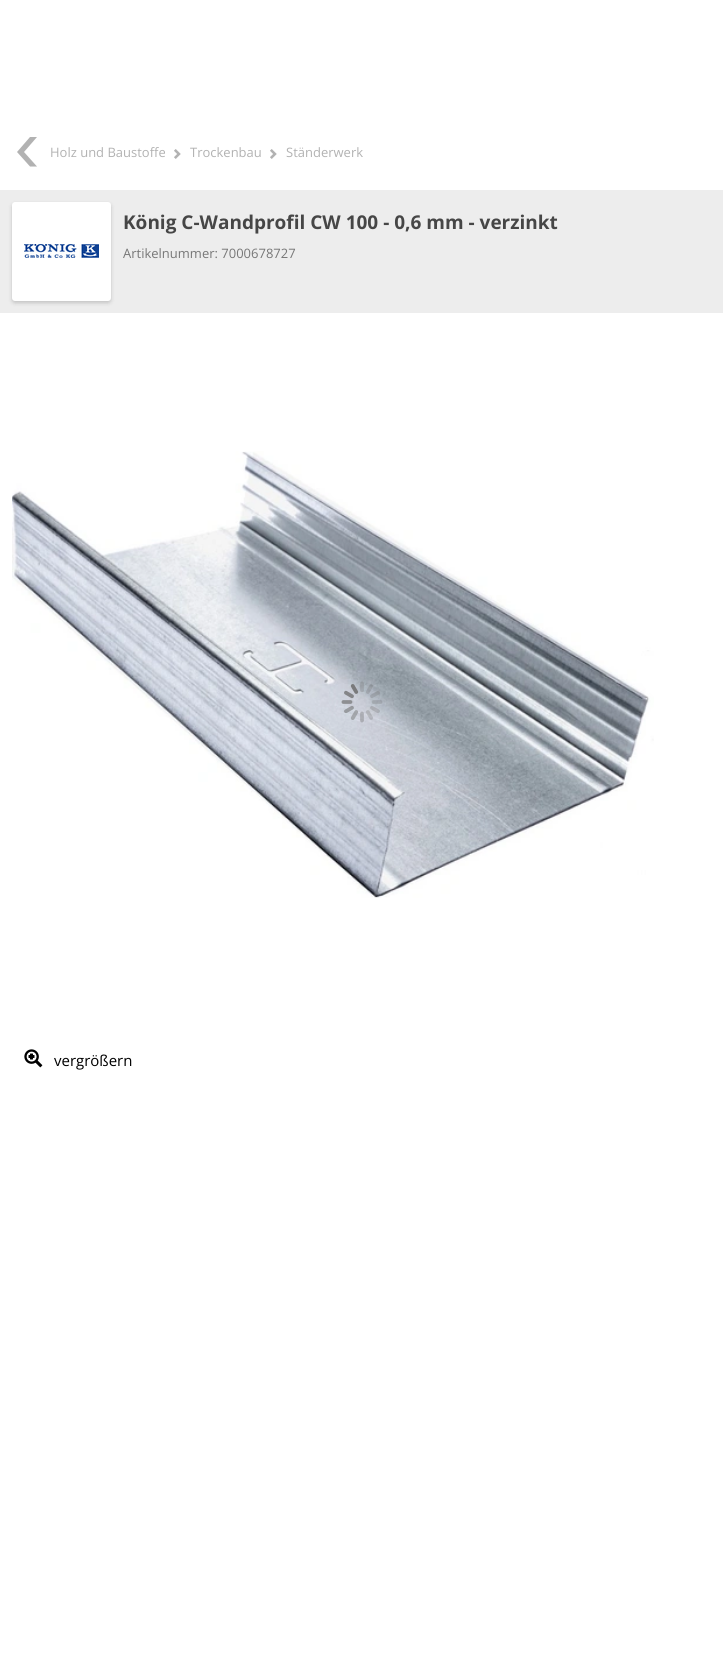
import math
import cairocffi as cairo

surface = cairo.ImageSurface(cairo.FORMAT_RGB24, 723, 1671)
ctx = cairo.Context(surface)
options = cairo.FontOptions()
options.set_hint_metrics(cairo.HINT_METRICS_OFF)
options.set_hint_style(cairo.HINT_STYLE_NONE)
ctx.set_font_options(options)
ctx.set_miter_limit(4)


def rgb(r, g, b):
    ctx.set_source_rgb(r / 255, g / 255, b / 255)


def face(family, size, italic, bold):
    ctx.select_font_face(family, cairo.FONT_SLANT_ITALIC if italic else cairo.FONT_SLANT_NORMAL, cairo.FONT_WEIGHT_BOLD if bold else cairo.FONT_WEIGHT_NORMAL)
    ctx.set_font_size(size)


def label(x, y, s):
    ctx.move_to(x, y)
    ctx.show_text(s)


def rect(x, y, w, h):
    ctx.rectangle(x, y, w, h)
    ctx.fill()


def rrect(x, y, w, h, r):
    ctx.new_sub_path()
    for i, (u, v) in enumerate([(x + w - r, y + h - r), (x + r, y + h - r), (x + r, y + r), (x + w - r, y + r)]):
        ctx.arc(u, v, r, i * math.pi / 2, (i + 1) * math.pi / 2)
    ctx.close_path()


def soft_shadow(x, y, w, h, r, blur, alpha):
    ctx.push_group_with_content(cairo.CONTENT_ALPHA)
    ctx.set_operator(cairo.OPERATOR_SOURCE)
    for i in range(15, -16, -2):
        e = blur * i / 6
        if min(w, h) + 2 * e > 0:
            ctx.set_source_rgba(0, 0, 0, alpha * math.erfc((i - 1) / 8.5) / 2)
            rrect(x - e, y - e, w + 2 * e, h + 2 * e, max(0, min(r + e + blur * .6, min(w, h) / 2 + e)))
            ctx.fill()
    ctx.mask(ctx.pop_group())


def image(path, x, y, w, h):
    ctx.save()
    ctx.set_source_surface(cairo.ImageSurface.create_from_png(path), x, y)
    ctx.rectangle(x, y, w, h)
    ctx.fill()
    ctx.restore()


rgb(255, 255, 255)
ctx.paint()
rgb(178, 178, 178)
ctx.new_path()
ctx.move_to(24, 152)
ctx.line_to(37, 166.5)
ctx.line_to(30, 166.5)
ctx.line_to(17, 152)
ctx.line_to(30, 137)
ctx.line_to(37, 137)
ctx.close_path()
ctx.fill()
face('Open Sans', 13, 0, 0)
label(50, 157, 'Holz und Baustoffe')
image('image0.png', 174, 149, 7, 10)
label(190, 157, 'Trockenbau')
image('image0.png', 270, 149, 7, 10)
label(286, 157, 'Ständerwerk')
rgb(237, 237, 237)
rect(0, 190, 723, 123)
rgb(0, 0, 0)
soft_shadow(12, 204, 99, 99, 3, 2, 0.18)
rgb(255, 255, 255)
rrect(12, 202, 99, 99, 3)
ctx.fill()
image('image1.png', 24, 244, 75, 14)
face('Open Sans', 19, 0, 1)
rgb(70, 70, 70)
label(123, 229, 'König C-Wandprofil CW 100 - 0,6 mm - verzinkt')
face('Open Sans', 13, 0, 0)
rgb(119, 119, 119)
label(123, 258, 'Artikelnummer: 7000678727')
image('image2.png', 12, 451, 642, 447)
image('image3.png', 341, 681, 42, 42)
image('image4.png', 24, 1049, 19, 19)
face('Open Sans', 15, 0, 0)
rgb(0, 0, 0)
label(54, 1066, 'vergrößern')
surface.write_to_png('render.png')
